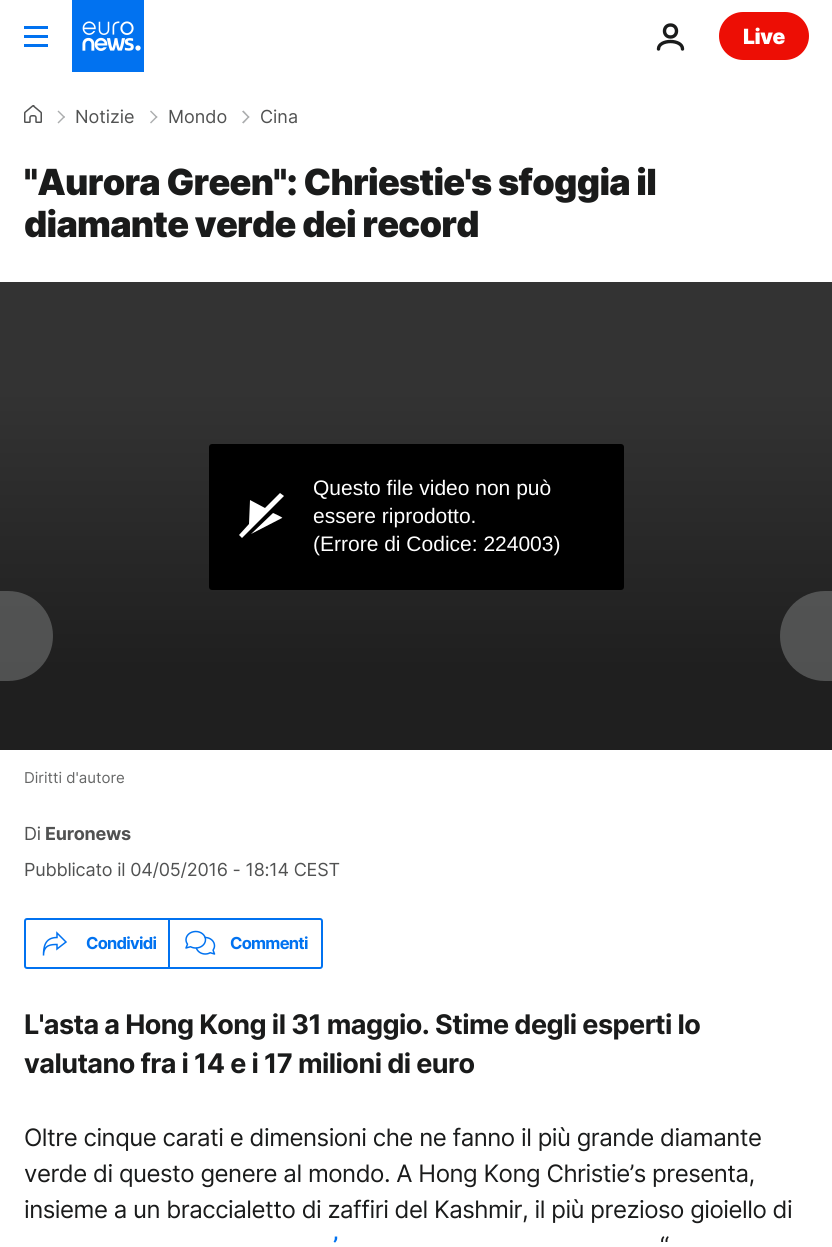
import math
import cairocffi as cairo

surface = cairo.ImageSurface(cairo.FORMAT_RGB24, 832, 1247)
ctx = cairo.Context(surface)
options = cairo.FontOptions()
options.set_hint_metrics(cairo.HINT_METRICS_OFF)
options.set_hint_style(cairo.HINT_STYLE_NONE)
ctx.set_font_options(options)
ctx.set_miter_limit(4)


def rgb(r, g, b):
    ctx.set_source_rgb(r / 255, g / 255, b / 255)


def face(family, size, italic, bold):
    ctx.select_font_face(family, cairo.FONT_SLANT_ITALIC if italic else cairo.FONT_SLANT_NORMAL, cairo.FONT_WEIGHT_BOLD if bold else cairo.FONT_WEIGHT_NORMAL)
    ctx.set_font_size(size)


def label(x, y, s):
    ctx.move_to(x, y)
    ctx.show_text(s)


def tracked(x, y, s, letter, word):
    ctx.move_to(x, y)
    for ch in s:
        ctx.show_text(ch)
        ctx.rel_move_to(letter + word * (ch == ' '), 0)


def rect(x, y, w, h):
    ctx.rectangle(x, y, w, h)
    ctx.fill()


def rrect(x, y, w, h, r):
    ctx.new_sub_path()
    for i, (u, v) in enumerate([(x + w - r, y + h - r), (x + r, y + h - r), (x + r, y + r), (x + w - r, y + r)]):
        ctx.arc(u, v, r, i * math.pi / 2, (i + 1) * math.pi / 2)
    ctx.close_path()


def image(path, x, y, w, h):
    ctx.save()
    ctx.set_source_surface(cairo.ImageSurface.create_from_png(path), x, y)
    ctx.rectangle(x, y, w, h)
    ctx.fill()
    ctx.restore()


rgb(255, 255, 255)
ctx.paint()
rgb(1, 114, 240)
rect(24, 26, 24, 3)
rect(24, 35, 24, 3)
rect(24, 44, 24, 3)
image('image0.png', 72, 0, 72, 72)
ctx.new_path()
ctx.move_to(658.5, 49)
ctx.curve_to(658.5, 39, 682.5, 39, 682.5, 49)
ctx.move_to(670.5, 37)
ctx.curve_to(678.5, 37, 678.5, 25, 670.5, 25)
ctx.curve_to(662.5, 25, 662.5, 37, 670.5, 37)
ctx.close_path()
rgb(26, 27, 27)
ctx.set_line_width(3.4)
ctx.set_line_cap(cairo.LINE_CAP_ROUND)
ctx.set_line_join(cairo.LINE_JOIN_ROUND)
ctx.stroke()
rgb(237, 14, 5)
rrect(719, 12, 90, 48, 24)
ctx.fill()
face('Inter Black', 21, 0, 0)
rgb(255, 255, 255)
tracked(743, 44, 'Live', -0.5, 0)
image('image1.png', 24, 105, 18, 18)
rgb(171, 173, 174)
ctx.new_path()
ctx.move_to(58.5, 110.5)
ctx.line_to(65, 117)
ctx.line_to(64, 118)
ctx.line_to(57.5, 111.5)
ctx.close_path()
ctx.fill()
ctx.new_path()
ctx.move_to(64, 116)
ctx.line_to(65, 117)
ctx.line_to(58.5, 123.5)
ctx.line_to(57.5, 122.5)
ctx.close_path()
ctx.fill()
face('Inter', 18, 0, 0)
rgb(81, 82, 82)
label(75, 123, 'Notizie')
rgb(171, 173, 174)
ctx.new_path()
ctx.move_to(151, 110.5)
ctx.line_to(157.5, 117)
ctx.line_to(156.5, 118)
ctx.line_to(150, 111.5)
ctx.close_path()
ctx.fill()
ctx.new_path()
ctx.move_to(156.5, 116)
ctx.line_to(157.5, 117)
ctx.line_to(151, 123.5)
ctx.line_to(150, 122.5)
ctx.close_path()
ctx.fill()
rgb(81, 82, 82)
label(168, 123, 'Mondo')
rgb(171, 173, 174)
ctx.new_path()
ctx.move_to(243.5, 110.5)
ctx.line_to(249.5, 117)
ctx.line_to(248.5, 118)
ctx.line_to(242, 111.5)
ctx.close_path()
ctx.fill()
ctx.new_path()
ctx.move_to(248.5, 116)
ctx.line_to(249.5, 117)
ctx.line_to(243.5, 123.5)
ctx.line_to(242, 122.5)
ctx.close_path()
ctx.fill()
rgb(81, 82, 82)
label(260, 123, 'Cina')
face('Inter Black', 36, 0, 0)
rgb(26, 27, 27)
tracked(24, 195, '"Aurora Green": Chriestie\'s sfoggia il', -0.7, 0)
tracked(24, 237, 'diamante verde dei record', -0.7, 0)
rgb(51, 51, 51)
rect(0, 282, 832, 108)
gradient = cairo.LinearGradient(416, 390, 416, 750)
gradient.add_color_stop_rgba(0, 0.2, 0.2, 0.2, 1)
gradient.add_color_stop_rgba(0.77, 0.122, 0.122, 0.122, 1)
gradient.add_color_stop_rgba(1, 0.122, 0.122, 0.122, 1)
ctx.set_source(gradient)
rect(0, 390, 832, 360)
rgb(0, 0, 0)
rrect(209, 444, 415, 146, 3)
ctx.fill()
rgb(255, 255, 255)
ctx.new_path()
ctx.move_to(282, 518)
ctx.line_to(251, 534)
ctx.line_to(273, 513)
ctx.curve_to(282, 517, 283, 518, 282, 518)
ctx.close_path()
ctx.move_to(280, 493)
ctx.line_to(265, 508)
ctx.line_to(250, 500)
ctx.line_to(249, 524)
ctx.line_to(239, 535)
ctx.line_to(242, 538)
ctx.line_to(284, 496)
ctx.close_path()
ctx.fill()
face('Liberation Sans', 21, 0, 0)
label(313, 495, 'Questo file video non può')
label(313, 523, 'essere riprodotto.')
label(313, 551, '(Errore di Codice: 224003)')
face('Inter', 15, 0, 0)
rgb(102, 103, 103)
label(24, 783, 'Diritti d\'autore')
face('Inter', 18, 0, 0)
rgb(81, 82, 82)
tracked(24, 840, 'Di', -0.25, 0)
face('Inter', 18, 0, 1)
tracked(45, 840, 'Euronews', -0.25, 0)
face('Inter', 18, 0, 0)
tracked(24, 876, 'Pubblicato il 04/05/2016 - 18:14 CEST', -0.2, 0)
rrect(25, 919, 297, 49, 2)
rgb(1, 114, 240)
ctx.set_line_width(2)
ctx.set_line_cap(cairo.LINE_CAP_BUTT)
ctx.set_line_join(cairo.LINE_JOIN_MITER)
ctx.stroke()
ctx.new_path()
ctx.move_to(57, 937.5)
ctx.curve_to(44.5, 937.5, 43.5, 947.5, 43.5, 955.5)
ctx.curve_to(43.5, 944.5, 51.5, 944.5, 57, 944.5)
ctx.line_to(57, 949)
ctx.line_to(66, 942)
ctx.line_to(57, 933)
ctx.close_path()
ctx.set_line_width(1.5)
ctx.set_line_cap(cairo.LINE_CAP_ROUND)
ctx.stroke()
face('Inter', 16.5, 0, 1)
tracked(86, 949, 'Condividi', -0.75, 0)
rect(168, 920, 2, 48)
image('image2.png', 185, 930, 31, 25)
tracked(230, 949, 'Commenti', -0.75, 0)
face('Inter', 27, 0, 1)
rgb(26, 27, 27)
tracked(24, 1034, 'L\'asta a Hong Kong il 31 maggio. Stime degli esperti lo', -0.55, 0)
tracked(24, 1073, 'valutano fra i 14 e i 17 milioni di euro', -0.55, 0)
face('Inter', 24, 0, 0)
tracked(24, 1146, 'Oltre cinque carati e dimensioni che ne fanno il più grande diamante', -0.48, 0)
tracked(24, 1182, 'verde di questo genere al mondo. A Hong Kong Christie’s presenta,', -0.48, 0)
tracked(24, 1218, 'insieme a un braccialetto di zaffiri del Kashmir, il più prezioso gioiello di', -0.48, 0)
face('Inter SemiBold', 24, 0, 0)
rgb(1, 114, 240)
tracked(333, 1254, '’', -0.48, 0)
face('Inter', 24, 0, 0)
rgb(26, 27, 27)
tracked(660, 1254, '“', -0.48, 0)
ctx.set_source_rgba(0.4, 0.404, 0.404, 0.7)
ctx.new_path()
ctx.move_to(0, 591)
ctx.line_to(8, 591)
ctx.curve_to(33, 591, 53, 611, 53, 636)
ctx.curve_to(53, 661, 33, 681, 8, 681)
ctx.line_to(0, 681)
ctx.close_path()
ctx.fill()
ctx.new_path()
ctx.move_to(825, 591)
ctx.line_to(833, 591)
ctx.line_to(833, 681)
ctx.line_to(825, 681)
ctx.curve_to(800, 681, 780, 661, 780, 636)
ctx.curve_to(780, 611, 800, 591, 825, 591)
ctx.close_path()
ctx.fill()
surface.write_to_png('render.png')
